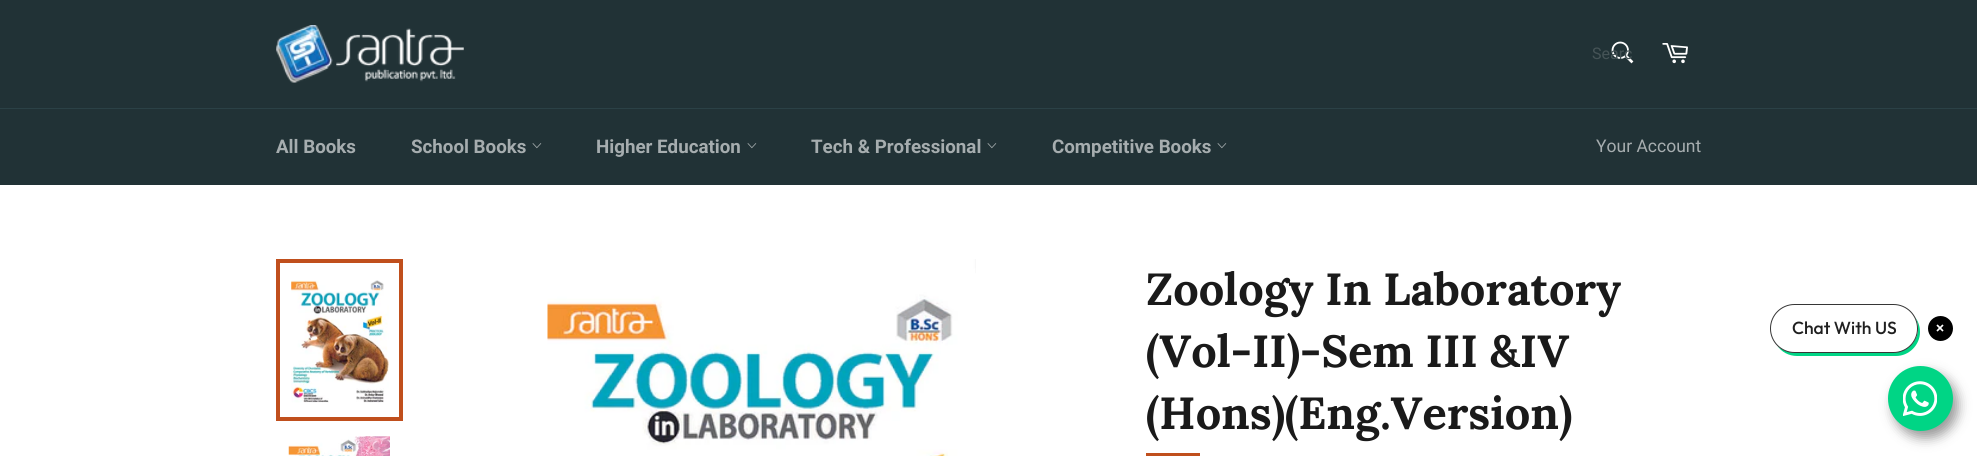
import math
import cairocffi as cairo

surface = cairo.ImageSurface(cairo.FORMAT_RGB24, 1977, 456)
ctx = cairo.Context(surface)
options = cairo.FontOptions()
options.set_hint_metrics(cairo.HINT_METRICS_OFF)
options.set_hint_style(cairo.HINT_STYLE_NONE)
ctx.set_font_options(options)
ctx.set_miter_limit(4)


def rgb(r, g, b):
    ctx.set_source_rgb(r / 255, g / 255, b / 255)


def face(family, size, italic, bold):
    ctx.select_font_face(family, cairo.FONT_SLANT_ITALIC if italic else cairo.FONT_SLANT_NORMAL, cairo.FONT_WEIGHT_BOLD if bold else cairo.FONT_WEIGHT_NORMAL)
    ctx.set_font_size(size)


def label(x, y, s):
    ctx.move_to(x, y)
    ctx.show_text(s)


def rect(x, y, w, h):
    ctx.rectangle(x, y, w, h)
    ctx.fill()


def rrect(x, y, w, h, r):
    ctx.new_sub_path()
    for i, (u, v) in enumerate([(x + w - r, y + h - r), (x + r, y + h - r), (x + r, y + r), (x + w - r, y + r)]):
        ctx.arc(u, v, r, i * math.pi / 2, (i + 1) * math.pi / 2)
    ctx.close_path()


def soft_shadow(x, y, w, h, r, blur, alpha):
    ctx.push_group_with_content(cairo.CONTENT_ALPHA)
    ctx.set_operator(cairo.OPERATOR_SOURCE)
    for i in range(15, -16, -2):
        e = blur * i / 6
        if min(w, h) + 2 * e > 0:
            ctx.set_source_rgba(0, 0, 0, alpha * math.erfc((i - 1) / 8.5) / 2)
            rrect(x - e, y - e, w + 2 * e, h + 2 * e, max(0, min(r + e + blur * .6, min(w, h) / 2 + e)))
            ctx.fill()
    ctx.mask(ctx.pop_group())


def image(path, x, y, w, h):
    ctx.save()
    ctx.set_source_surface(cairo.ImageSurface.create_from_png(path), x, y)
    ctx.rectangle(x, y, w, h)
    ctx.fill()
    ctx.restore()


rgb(33, 50, 54)
ctx.paint()
image('image0.png', 276, 25, 188, 58)
image('image1.png', 1611, 41, 23, 23)
face('Roboto', 16, 0, 0)
rgb(69, 83, 86)
label(1592, 59, 'Searc')
image('image2.png', 1662, 43, 26, 21)
rgb(43, 65, 70)
rect(0, 108, 1977, 1)
face('Roboto', 18.75, 0, 1)
rgb(166, 173, 175)
label(276, 153, 'All Books')
label(411, 153, 'School Books')
image('image3.png', 532, 143, 10, 6)
label(596, 153, 'Higher Education')
image('image3.png', 747, 143, 10, 6)
label(811, 153, 'Tech & Professional')
image('image3.png', 987, 143, 10, 6)
label(1052, 153, 'Competitive Books')
image('image3.png', 1217, 143, 10, 6)
face('Roboto', 17.5, 0, 0)
label(1596, 152, 'Your Account')
rgb(255, 255, 255)
rect(0, 185, 1977, 271)
image('image4.png', 291, 280, 98, 123)
ctx.rectangle(278, 261, 123, 158)
rgb(192, 79, 29)
ctx.set_line_width(4)
ctx.stroke()
image('image5.png', 288, 436, 102, 20)
image('image6.png', 547, 259, 429, 197)
face('Lora', 45, 0, 1)
rgb(26, 26, 26)
label(1146, 305, 'Zoology In Laboratory')
label(1146, 367, '(Vol-II)-Sem III &IV')
label(1146, 429, '(Hons)(Eng.Version)')
rgb(192, 79, 29)
rect(1146, 453, 54, 3)
rgb(0, 0, 0)
soft_shadow(1893, 373, 65, 65, 32.5, 6, 0.4)
rgb(0, 213, 133)
ctx.new_path()
ctx.move_to(1777, 345)
ctx.curve_to(1781, 352, 1789, 356, 1797, 356)
ctx.line_to(1896, 356)
ctx.curve_to(1909, 356, 1920, 345, 1920, 332)
ctx.curve_to(1920, 326, 1918, 321, 1915, 317)
ctx.curve_to(1917, 321, 1918, 324, 1918, 328)
ctx.curve_to(1918, 342, 1907, 352, 1893, 352)
ctx.line_to(1794, 352)
ctx.curve_to(1788, 352, 1781, 350, 1777, 345)
ctx.close_path()
ctx.fill()
rgb(255, 255, 255)
rrect(1770.5, 304.5, 147, 48, 24)
ctx.fill_preserve()
rgb(54, 54, 54)
ctx.set_line_width(1)
ctx.stroke()
face('Outfit Medium', 17.5, 0, 0)
rgb(32, 32, 32)
label(1792, 334, 'Chat With US')
rgb(0, 0, 0)
ctx.new_path()
ctx.arc(1940.5, 328.5, 12.5, 0, 2 * math.pi)
ctx.fill()
ctx.new_path()
ctx.move_to(1937, 325)
ctx.line_to(1943, 331)
ctx.move_to(1937, 331)
ctx.line_to(1943, 325)
rgb(255, 255, 255)
ctx.set_line_width(1.7)
ctx.stroke()
rgb(0, 213, 133)
ctx.arc(1920.5, 398.5, 32.5, 0, 2 * math.pi)
ctx.fill()
image('image7.png', 1903, 381, 34, 35)
surface.write_to_png('render.png')
